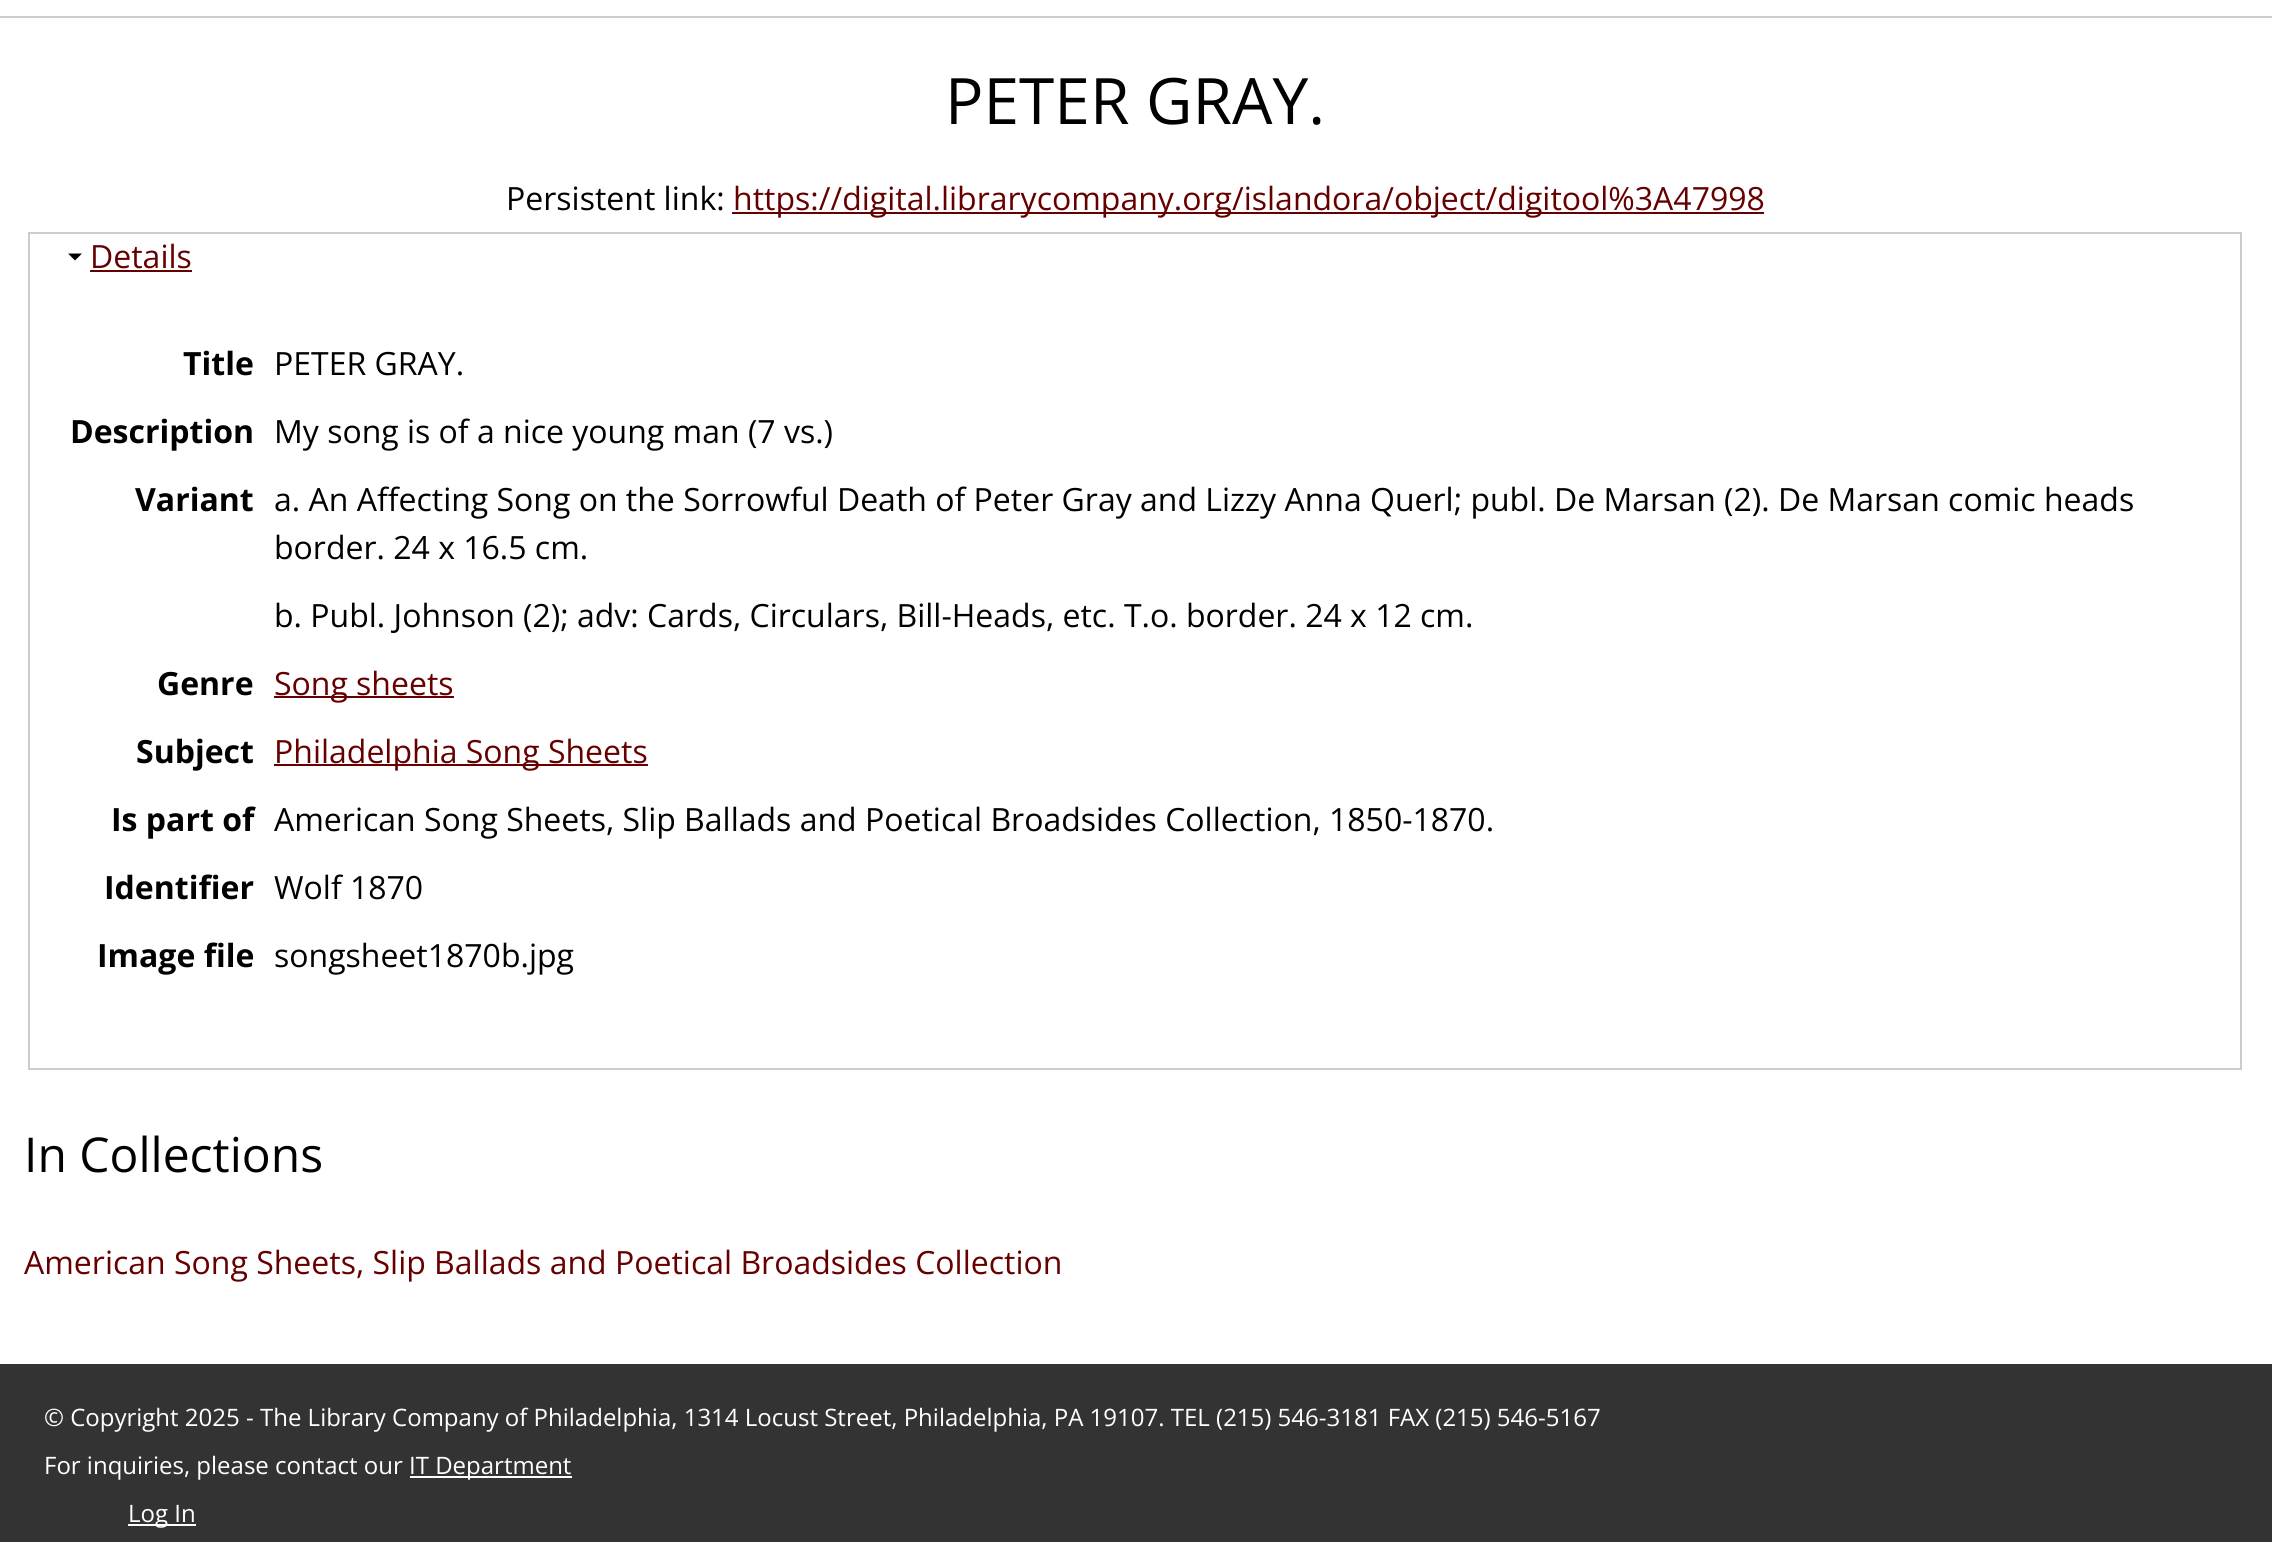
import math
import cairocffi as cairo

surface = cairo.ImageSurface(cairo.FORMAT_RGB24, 2272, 1542)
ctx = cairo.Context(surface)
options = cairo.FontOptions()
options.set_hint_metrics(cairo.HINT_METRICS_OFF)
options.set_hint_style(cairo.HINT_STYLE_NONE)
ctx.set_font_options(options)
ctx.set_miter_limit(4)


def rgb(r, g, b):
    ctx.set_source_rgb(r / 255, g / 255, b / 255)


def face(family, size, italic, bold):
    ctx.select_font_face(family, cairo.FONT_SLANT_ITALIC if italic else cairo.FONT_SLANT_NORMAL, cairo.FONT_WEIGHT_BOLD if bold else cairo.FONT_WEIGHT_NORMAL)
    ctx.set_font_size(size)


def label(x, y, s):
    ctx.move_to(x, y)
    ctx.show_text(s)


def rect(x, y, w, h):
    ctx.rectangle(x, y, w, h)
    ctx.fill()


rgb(255, 255, 255)
ctx.paint()
rgb(204, 204, 204)
rect(0, 16, 2272, 2)
face('Open Sans', 64, 0, 0)
rgb(0, 0, 0)
label(945, 124, 'PETER GRAY.')
face('Open Sans', 32, 0, 0)
label(506, 210, 'Persistent link:')
rgb(102, 0, 0)
rect(732, 212, 1032, 2)
label(733, 210, 'https://digital.librarycompany.org/islandora/object/digitool%3A47998')
ctx.rectangle(29, 233, 2212, 836)
rgb(204, 204, 204)
ctx.stroke()
rgb(0, 0, 0)
ctx.new_path()
ctx.move_to(82, 253.5)
ctx.line_to(75, 260.5)
ctx.line_to(68, 253.5)
ctx.close_path()
ctx.fill()
rgb(102, 0, 0)
label(90, 268, 'Details')
rect(90, 270, 102, 2)
face('Open Sans', 32, 0, 1)
rgb(0, 0, 0)
label(183, 375, 'Title')
face('Open Sans', 32, 0, 0)
label(274, 375, 'PETER GRAY.')
face('Open Sans', 32, 0, 1)
label(70, 443, 'Description')
face('Open Sans', 32, 0, 0)
label(274, 443, 'My song is of a nice young man (7 vs.)')
face('Open Sans', 32, 0, 1)
label(135, 511, 'Variant')
face('Open Sans', 32, 0, 0)
label(274, 511, 'a. An Affecting Song on the Sorrowful Death of Peter Gray and Lizzy Anna Querl; publ. De Marsan (2). De Marsan comic heads')
label(274, 559, 'border. 24 x 16.5 cm.')
label(274, 627, 'b. Publ. Johnson (2); adv: Cards, Circulars, Bill-Heads, etc. T.o. border. 24 x 12 cm.')
face('Open Sans', 32, 0, 1)
label(157, 695, 'Genre')
rgb(102, 0, 0)
rect(274, 696, 180, 2)
face('Open Sans', 32, 0, 0)
label(274, 695, 'Song sheets')
face('Open Sans', 32, 0, 1)
rgb(0, 0, 0)
label(136, 763, 'Subject')
rgb(102, 0, 0)
rect(274, 764, 374, 2)
face('Open Sans', 32, 0, 0)
label(274, 763, 'Philadelphia Song Sheets')
face('Open Sans', 32, 0, 1)
rgb(0, 0, 0)
label(111, 831, 'Is part of')
face('Open Sans', 32, 0, 0)
label(274, 831, 'American Song Sheets, Slip Ballads and Poetical Broadsides Collection, 1850-1870.')
face('Open Sans', 32, 0, 1)
label(104, 899, 'Identifier')
face('Open Sans', 32, 0, 0)
label(274, 899, 'Wolf 1870')
face('Open Sans', 32, 0, 1)
label(97, 967, 'Image file')
face('Open Sans', 32, 0, 0)
label(274, 967, 'songsheet1870b.jpg')
face('Open Sans', 48, 0, 0)
label(24, 1172, 'In Collections')
face('Open Sans', 32, 0, 0)
rgb(102, 0, 0)
label(24, 1274, 'American Song Sheets, Slip Ballads and Poetical Broadsides Collection')
rgb(51, 51, 51)
rect(0, 1364, 2272, 178)
face('Open Sans', 24, 0, 0)
rgb(255, 255, 255)
label(44, 1426, '© Copyright 2025 - The Library Company of Philadelphia, 1314 Locust Street, Philadelphia, PA 19107. TEL (215) 546-3181 FAX (215) 546-5167')
label(44, 1474, 'For inquiries, please contact our')
rect(410, 1476, 162, 2)
label(409, 1474, 'IT Department')
rect(128, 1524, 68, 2)
label(128, 1522, 'Log In')
surface.write_to_png('render.png')
